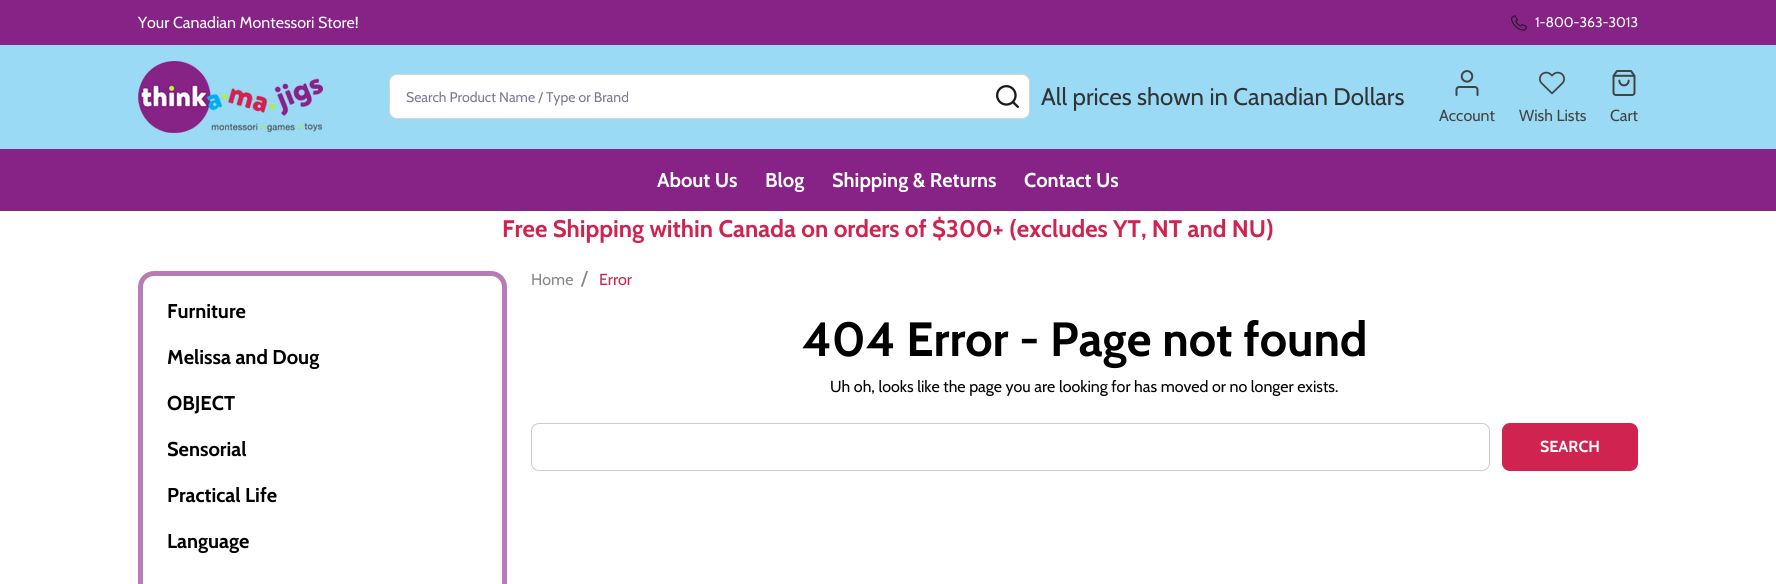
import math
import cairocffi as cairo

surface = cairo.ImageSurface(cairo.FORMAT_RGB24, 1776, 584)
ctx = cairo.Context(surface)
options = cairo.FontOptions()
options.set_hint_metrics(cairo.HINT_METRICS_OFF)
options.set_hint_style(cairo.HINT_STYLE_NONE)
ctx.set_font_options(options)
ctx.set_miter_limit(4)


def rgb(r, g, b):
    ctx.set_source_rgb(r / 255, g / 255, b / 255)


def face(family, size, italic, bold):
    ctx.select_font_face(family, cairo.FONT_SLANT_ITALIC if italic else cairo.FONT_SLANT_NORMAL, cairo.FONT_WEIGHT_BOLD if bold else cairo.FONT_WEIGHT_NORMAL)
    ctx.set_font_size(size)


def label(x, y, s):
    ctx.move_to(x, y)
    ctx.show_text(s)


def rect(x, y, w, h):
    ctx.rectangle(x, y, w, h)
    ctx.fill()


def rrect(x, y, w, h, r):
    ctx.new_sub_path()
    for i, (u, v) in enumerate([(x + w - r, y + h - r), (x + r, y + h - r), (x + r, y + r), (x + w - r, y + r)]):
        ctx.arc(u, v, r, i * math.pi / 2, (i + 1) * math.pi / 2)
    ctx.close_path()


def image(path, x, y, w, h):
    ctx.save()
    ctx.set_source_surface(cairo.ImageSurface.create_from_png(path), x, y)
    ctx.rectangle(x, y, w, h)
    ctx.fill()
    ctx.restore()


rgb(255, 255, 255)
ctx.paint()
rgb(135, 35, 134)
rect(0, 0, 1776, 45)
face('Cabin', 16, 0, 0)
rgb(255, 255, 255)
label(138, 28, 'Your Canadian Montessori Store!')
image('image0.png', 1511, 15, 16, 16)
face('Cabin', 14, 0, 0)
label(1535, 27, '1-800-363-3013')
rgb(154, 218, 244)
rect(0, 45, 1776, 104)
image('image1.png', 138, 61, 185, 72)
rgb(255, 255, 255)
rrect(389.5, 74.5, 640, 44, 7.5)
ctx.fill_preserve()
rgb(214, 214, 214)
ctx.set_line_width(1)
ctx.stroke()
rgb(122, 122, 151)
label(406, 102, 'Search Product Name / Type or Brand')
image('image2.png', 996, 85, 23, 23)
face('Cabin', 24, 0, 0)
rgb(51, 51, 51)
label(1041, 105, 'All prices shown in Canadian Dollars')
image('image3.png', 1455, 70, 24, 26)
face('Cabin', 16, 0, 0)
rgb(67, 67, 67)
label(1439, 121, 'Account')
image('image4.png', 1539, 71, 26, 24)
label(1519, 121, 'Wish Lists')
image('image5.png', 1612, 70, 24, 26)
label(1610, 121, 'Cart')
rgb(135, 35, 134)
rect(0, 149, 1776, 62)
face('Cabin', 20, 0, 1)
rgb(255, 255, 255)
label(657, 187, 'About Us')
label(765, 187, 'Blog')
label(832, 187, 'Shipping & Returns')
label(1024, 187, 'Contact Us')
face('Cabin', 24, 0, 1)
rgb(208, 35, 80)
label(502, 237, 'Free Shipping within Canada on orders of $300+ (excludes YT, NT and NU)')
rrect(140.5, 273.5, 364, 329, 13.5)
rgb(183, 123, 182)
ctx.set_line_width(5)
ctx.stroke()
face('Cabin', 20, 0, 1)
rgb(0, 0, 0)
label(167, 318, 'Furniture')
label(167, 364, 'Melissa and Doug')
label(167, 410, 'OBJECT')
label(167, 456, 'Sensorial')
label(167, 502, 'Practical Life')
label(167, 548, 'Language')
face('Cabin', 16, 0, 0)
rgb(135, 135, 135)
label(531, 285, 'Home')
face('Cabin', 20, 0, 0)
label(581, 285, '/')
face('Cabin', 16, 0, 0)
rgb(208, 35, 80)
label(599, 285, 'Error')
face('Cabin', 48, 0, 1)
rgb(0, 0, 0)
label(802, 356, '404 Error - Page not found')
face('Cabin', 16, 0, 0)
label(830, 392, 'Uh oh, looks like the page you are looking for has moved or no longer exists.')
rrect(531.5, 423.5, 958, 47, 7.5)
rgb(204, 204, 204)
ctx.set_line_width(1)
ctx.stroke()
rgb(208, 35, 80)
rrect(1503, 424, 134, 46, 7)
ctx.fill_preserve()
ctx.set_line_width(2)
ctx.stroke()
face('Cabin', 16, 0, 1)
rgb(255, 255, 255)
label(1540, 452, 'SEARCH')
surface.write_to_png('render.png')
